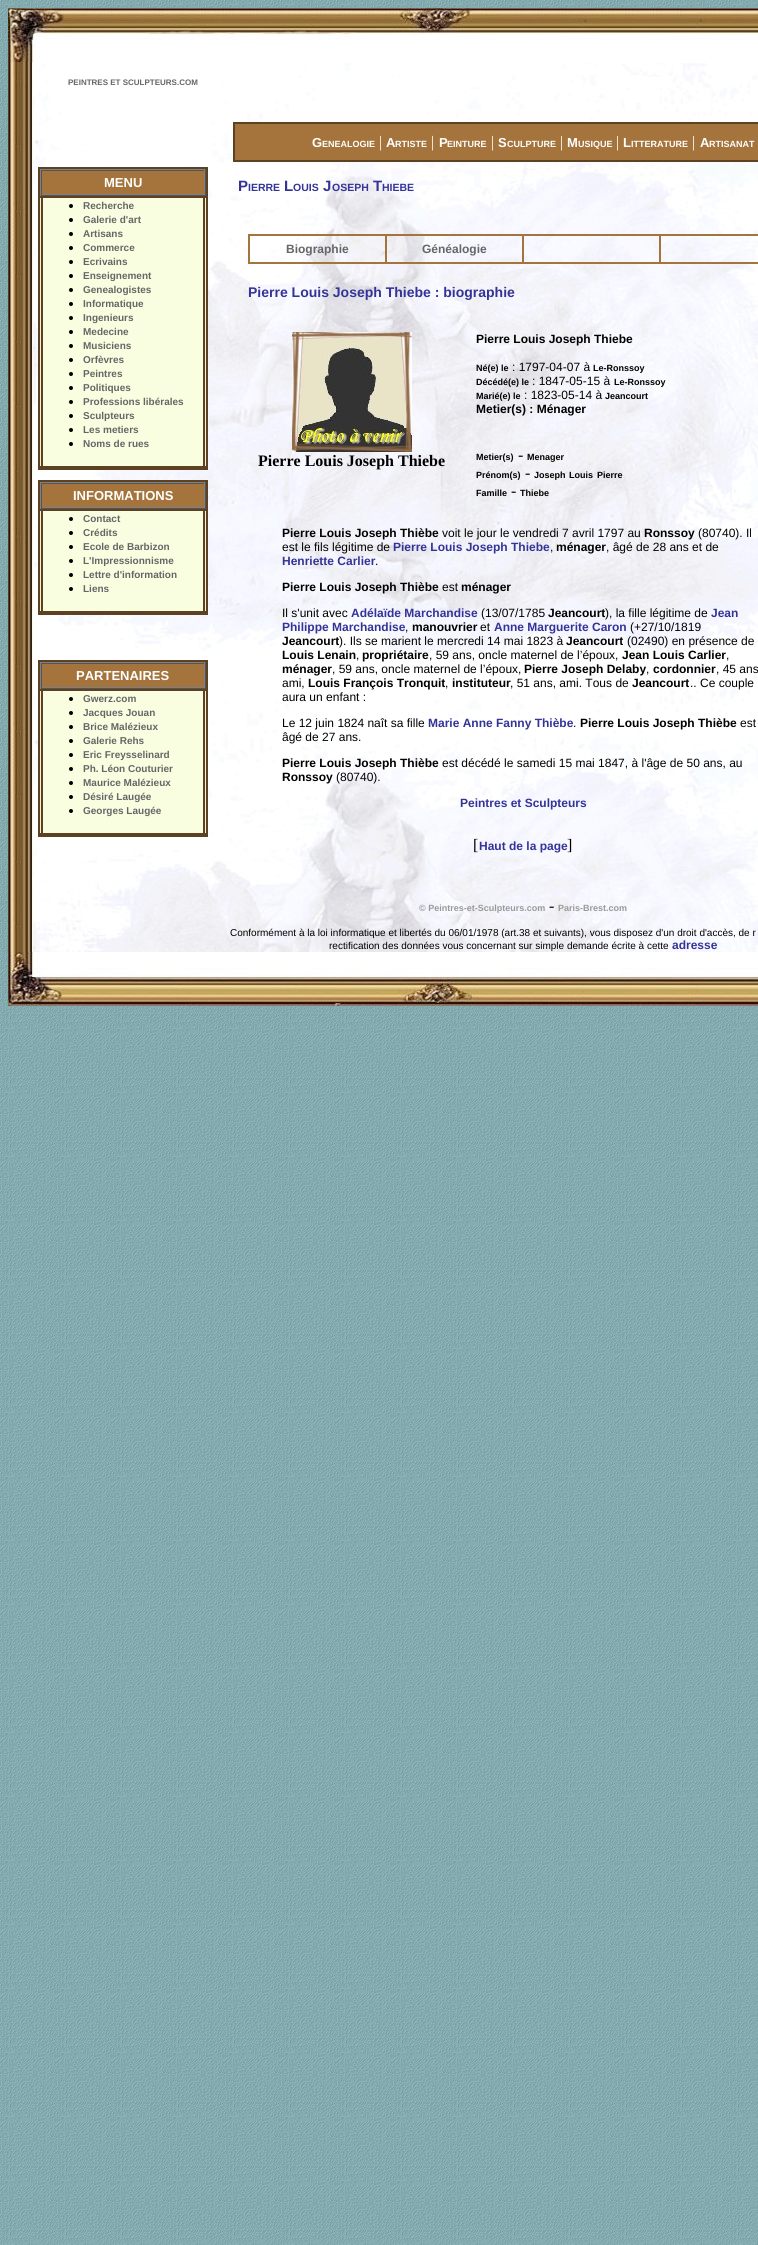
import math
import cairocffi as cairo

surface = cairo.ImageSurface(cairo.FORMAT_RGB24, 758, 2245)
ctx = cairo.Context(surface)
options = cairo.FontOptions()
options.set_hint_metrics(cairo.HINT_METRICS_OFF)
options.set_hint_style(cairo.HINT_STYLE_NONE)
ctx.set_font_options(options)
ctx.set_miter_limit(4)


def rgb(r, g, b):
    ctx.set_source_rgb(r / 255, g / 255, b / 255)


def face(family, size, italic, bold):
    ctx.select_font_face(family, cairo.FONT_SLANT_ITALIC if italic else cairo.FONT_SLANT_NORMAL, cairo.FONT_WEIGHT_BOLD if bold else cairo.FONT_WEIGHT_NORMAL)
    ctx.set_font_size(size)


def label(x, y, s):
    ctx.move_to(x, y)
    ctx.show_text(s)


def rect(x, y, w, h):
    ctx.rectangle(x, y, w, h)
    ctx.fill()


def image(path, x, y, w, h):
    ctx.save()
    ctx.set_source_surface(cairo.ImageSurface.create_from_png(path), x, y)
    ctx.rectangle(x, y, w, h)
    ctx.fill()
    ctx.restore()


rgb(255, 255, 255)
ctx.paint()
image('image0.png', 0, 0, 758, 2245)
image('image1.png', 8, 8, 750, 54)
image('image2.png', 8, 62, 25, 890)
rgb(255, 255, 255)
rect(33, 62, 725, 1)
image('image3.png', 33, 63, 725, 889)
face('Liberation Sans', 8, 0, 1)
rgb(102, 102, 102)
label(68, 85, 'PEINTRES ET SCULPTEURS.COM')
rgb(164, 116, 60)
rect(235, 124, 523, 36)
ctx.rectangle(233.5, 122.5, 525, 39)
rgb(92, 66, 35)
ctx.set_line_width(1)
ctx.stroke()
ctx.rectangle(234.5, 123.5, 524, 37)
ctx.stroke()
face('Liberation Sans', 13, 0, 1)
rgb(255, 255, 255)
label(312, 147, 'G')
face('Liberation Sans', 9, 0, 1)
label(322, 147, 'ENEALOGIE')
face('Liberation Serif', 16, 0, 0)
label(379, 147, '|')
face('Liberation Sans', 13, 0, 1)
label(386, 147, 'A')
face('Liberation Sans', 9, 0, 1)
label(395, 147, 'RTISTE')
face('Liberation Serif', 16, 0, 0)
label(431, 147, '|')
face('Liberation Sans', 13, 0, 1)
label(439, 147, 'P')
face('Liberation Sans', 9, 0, 1)
label(447, 147, 'EINTURE')
face('Liberation Serif', 16, 0, 0)
label(491, 147, '|')
face('Liberation Sans', 13, 0, 1)
label(498, 147, 'S')
face('Liberation Sans', 9, 0, 1)
label(507, 147, 'CULPTURE')
face('Liberation Serif', 16, 0, 0)
label(560, 147, '|')
face('Liberation Sans', 13, 0, 1)
label(567, 147, 'M')
face('Liberation Sans', 9, 0, 1)
label(578, 147, 'USIQUE')
face('Liberation Serif', 16, 0, 0)
label(616, 147, '|')
face('Liberation Sans', 13, 0, 1)
label(623, 147, 'L')
face('Liberation Sans', 9, 0, 1)
label(631, 147, 'ITTERATURE')
face('Liberation Serif', 16, 0, 0)
label(692, 147, '|')
face('Liberation Sans', 13, 0, 1)
label(700, 147, 'A')
face('Liberation Sans', 9, 0, 1)
label(709, 147, 'RTISANAT')
ctx.rectangle(38.5, 167.5, 169, 302)
rgb(92, 66, 35)
ctx.stroke()
ctx.rectangle(39.5, 168.5, 167, 28)
ctx.stroke()
rgb(128, 128, 128)
rect(40, 169, 166, 1)
rgb(85, 85, 85)
rect(205, 169, 1, 27)
rect(40, 195, 166, 1)
rgb(128, 128, 128)
rect(40, 169, 1, 27)
rgb(164, 116, 60)
rect(42, 171, 162, 23)
rgb(85, 85, 85)
rect(41, 170, 164, 1)
rgb(128, 128, 128)
rect(204, 170, 1, 25)
rect(41, 194, 164, 1)
rgb(85, 85, 85)
rect(41, 170, 1, 25)
face('Liberation Sans', 13, 0, 1)
rgb(255, 255, 255)
label(104, 187, 'MENU')
rgb(252, 240, 217)
ctx.rectangle(39.5, 197.5, 2, 269)
ctx.fill_preserve()
rgb(92, 66, 35)
ctx.stroke()
rgb(249, 254, 224)
ctx.rectangle(42.5, 197.5, 161, 269)
ctx.fill_preserve()
rgb(92, 66, 35)
ctx.stroke()
rgb(0, 0, 0)
ctx.arc(71, 206, 2, 0, 2 * math.pi)
ctx.fill()
face('Liberation Sans', 10, 0, 1)
rgb(102, 102, 102)
label(83, 209, 'Recherche')
rgb(0, 0, 0)
ctx.new_path()
ctx.arc(71, 220, 2, 0, 2 * math.pi)
ctx.fill()
rgb(102, 102, 102)
label(83, 223, 'Galerie d\'art')
rgb(0, 0, 0)
ctx.new_path()
ctx.arc(71, 234, 2, 0, 2 * math.pi)
ctx.fill()
rgb(102, 102, 102)
label(83, 237, 'Artisans')
rgb(0, 0, 0)
ctx.new_path()
ctx.arc(71, 248, 2, 0, 2 * math.pi)
ctx.fill()
rgb(102, 102, 102)
label(83, 251, 'Commerce')
rgb(0, 0, 0)
ctx.new_path()
ctx.arc(71, 262, 2, 0, 2 * math.pi)
ctx.fill()
rgb(102, 102, 102)
label(83, 265, 'Ecrivains')
rgb(0, 0, 0)
ctx.new_path()
ctx.arc(71, 276, 2, 0, 2 * math.pi)
ctx.fill()
rgb(102, 102, 102)
label(83, 279, 'Enseignement')
rgb(0, 0, 0)
ctx.new_path()
ctx.arc(71, 290, 2, 0, 2 * math.pi)
ctx.fill()
rgb(102, 102, 102)
label(83, 293, 'Genealogistes')
rgb(0, 0, 0)
ctx.new_path()
ctx.arc(71, 304, 2, 0, 2 * math.pi)
ctx.fill()
rgb(102, 102, 102)
label(83, 307, 'Informatique')
rgb(0, 0, 0)
ctx.new_path()
ctx.arc(71, 318, 2, 0, 2 * math.pi)
ctx.fill()
rgb(102, 102, 102)
label(83, 321, 'Ingenieurs')
rgb(0, 0, 0)
ctx.new_path()
ctx.arc(71, 332, 2, 0, 2 * math.pi)
ctx.fill()
rgb(102, 102, 102)
label(83, 335, 'Medecine')
rgb(0, 0, 0)
ctx.new_path()
ctx.arc(71, 346, 2, 0, 2 * math.pi)
ctx.fill()
rgb(102, 102, 102)
label(83, 349, 'Musiciens')
rgb(0, 0, 0)
ctx.new_path()
ctx.arc(71, 360, 2, 0, 2 * math.pi)
ctx.fill()
rgb(102, 102, 102)
label(83, 363, 'Orfèvres')
rgb(0, 0, 0)
ctx.new_path()
ctx.arc(71, 374, 2, 0, 2 * math.pi)
ctx.fill()
rgb(102, 102, 102)
label(83, 377, 'Peintres')
rgb(0, 0, 0)
ctx.new_path()
ctx.arc(71, 388, 2, 0, 2 * math.pi)
ctx.fill()
rgb(102, 102, 102)
label(83, 391, 'Politiques')
rgb(0, 0, 0)
ctx.new_path()
ctx.arc(71, 402, 2, 0, 2 * math.pi)
ctx.fill()
rgb(102, 102, 102)
label(83, 405, 'Professions libérales')
rgb(0, 0, 0)
ctx.new_path()
ctx.arc(71, 416, 2, 0, 2 * math.pi)
ctx.fill()
rgb(102, 102, 102)
label(83, 419, 'Sculpteurs')
rgb(0, 0, 0)
ctx.new_path()
ctx.arc(71, 430, 2, 0, 2 * math.pi)
ctx.fill()
rgb(102, 102, 102)
label(83, 433, 'Les metiers')
rgb(0, 0, 0)
ctx.new_path()
ctx.arc(71, 444, 2, 0, 2 * math.pi)
ctx.fill()
rgb(102, 102, 102)
label(83, 447, 'Noms de rues')
rgb(252, 240, 217)
ctx.rectangle(204.5, 197.5, 2, 269)
ctx.fill_preserve()
rgb(92, 66, 35)
ctx.stroke()
rect(39, 467, 168, 2)
ctx.rectangle(38.5, 480.5, 169, 134)
ctx.stroke()
ctx.rectangle(39.5, 481.5, 167, 28)
ctx.stroke()
rgb(128, 128, 128)
rect(40, 482, 166, 1)
rgb(85, 85, 85)
rect(205, 482, 1, 27)
rect(40, 508, 166, 1)
rgb(128, 128, 128)
rect(40, 482, 1, 27)
rgb(164, 116, 60)
rect(42, 484, 162, 23)
rgb(85, 85, 85)
rect(41, 483, 164, 1)
rgb(128, 128, 128)
rect(204, 483, 1, 25)
rect(41, 507, 164, 1)
rgb(85, 85, 85)
rect(41, 483, 1, 25)
face('Liberation Sans', 13, 0, 1)
rgb(255, 255, 255)
label(73, 500, 'INFORMATIONS')
rgb(252, 240, 217)
ctx.rectangle(39.5, 510.5, 2, 101)
ctx.fill_preserve()
rgb(92, 66, 35)
ctx.stroke()
rgb(249, 254, 224)
ctx.rectangle(42.5, 510.5, 161, 101)
ctx.fill_preserve()
rgb(92, 66, 35)
ctx.stroke()
rgb(0, 0, 0)
ctx.arc(71, 519, 2, 0, 2 * math.pi)
ctx.fill()
face('Liberation Sans', 10, 0, 1)
rgb(102, 102, 102)
label(83, 522, 'Contact')
rgb(0, 0, 0)
ctx.new_path()
ctx.arc(71, 533, 2, 0, 2 * math.pi)
ctx.fill()
rgb(102, 102, 102)
label(83, 536, 'Crédits')
rgb(0, 0, 0)
ctx.new_path()
ctx.arc(71, 547, 2, 0, 2 * math.pi)
ctx.fill()
rgb(102, 102, 102)
label(83, 550, 'Ecole de Barbizon')
rgb(0, 0, 0)
ctx.new_path()
ctx.arc(71, 561, 2, 0, 2 * math.pi)
ctx.fill()
rgb(102, 102, 102)
label(83, 564, 'L\'Impressionnisme')
rgb(0, 0, 0)
ctx.new_path()
ctx.arc(71, 575, 2, 0, 2 * math.pi)
ctx.fill()
rgb(102, 102, 102)
label(83, 578, 'Lettre d\'information')
rgb(0, 0, 0)
ctx.new_path()
ctx.arc(71, 589, 2, 0, 2 * math.pi)
ctx.fill()
rgb(102, 102, 102)
label(83, 592, 'Liens')
rgb(252, 240, 217)
ctx.rectangle(204.5, 510.5, 2, 101)
ctx.fill_preserve()
rgb(92, 66, 35)
ctx.stroke()
rect(39, 612, 168, 2)
ctx.rectangle(38.5, 660.5, 169, 176)
ctx.stroke()
ctx.rectangle(39.5, 661.5, 167, 28)
ctx.stroke()
rgb(128, 128, 128)
rect(40, 662, 166, 1)
rgb(85, 85, 85)
rect(205, 662, 1, 27)
rect(40, 688, 166, 1)
rgb(128, 128, 128)
rect(40, 662, 1, 27)
rgb(164, 116, 60)
rect(42, 664, 162, 23)
rgb(85, 85, 85)
rect(41, 663, 164, 1)
rgb(128, 128, 128)
rect(204, 663, 1, 25)
rect(41, 687, 164, 1)
rgb(85, 85, 85)
rect(41, 663, 1, 25)
face('Liberation Sans', 13, 0, 1)
rgb(255, 255, 255)
label(76, 680, 'PARTENAIRES')
rgb(252, 240, 217)
ctx.rectangle(39.5, 690.5, 2, 143)
ctx.fill_preserve()
rgb(92, 66, 35)
ctx.stroke()
rgb(249, 254, 224)
ctx.rectangle(42.5, 690.5, 161, 143)
ctx.fill_preserve()
rgb(92, 66, 35)
ctx.stroke()
rgb(0, 0, 0)
ctx.arc(71, 699, 2, 0, 2 * math.pi)
ctx.fill()
face('Liberation Sans', 10, 0, 1)
rgb(102, 102, 102)
label(83, 702, 'Gwerz.com')
rgb(0, 0, 0)
ctx.new_path()
ctx.arc(71, 713, 2, 0, 2 * math.pi)
ctx.fill()
rgb(102, 102, 102)
label(83, 716, 'Jacques Jouan')
rgb(0, 0, 0)
ctx.new_path()
ctx.arc(71, 727, 2, 0, 2 * math.pi)
ctx.fill()
rgb(102, 102, 102)
label(83, 730, 'Brice Malézieux')
rgb(0, 0, 0)
ctx.new_path()
ctx.arc(71, 741, 2, 0, 2 * math.pi)
ctx.fill()
rgb(102, 102, 102)
label(83, 744, 'Galerie Rehs')
rgb(0, 0, 0)
ctx.new_path()
ctx.arc(71, 755, 2, 0, 2 * math.pi)
ctx.fill()
rgb(102, 102, 102)
label(83, 758, 'Eric Freysselinard')
rgb(0, 0, 0)
ctx.new_path()
ctx.arc(71, 769, 2, 0, 2 * math.pi)
ctx.fill()
rgb(102, 102, 102)
label(83, 772, 'Ph. Léon Couturier')
rgb(0, 0, 0)
ctx.new_path()
ctx.arc(71, 783, 2, 0, 2 * math.pi)
ctx.fill()
rgb(102, 102, 102)
label(83, 786, 'Maurice Malézieux')
rgb(0, 0, 0)
ctx.new_path()
ctx.arc(71, 797, 2, 0, 2 * math.pi)
ctx.fill()
rgb(102, 102, 102)
label(83, 800, 'Désiré Laugée')
rgb(0, 0, 0)
ctx.new_path()
ctx.arc(71, 811, 2, 0, 2 * math.pi)
ctx.fill()
rgb(102, 102, 102)
label(83, 814, 'Georges Laugée')
rgb(252, 240, 217)
ctx.rectangle(204.5, 690.5, 2, 143)
ctx.fill_preserve()
rgb(92, 66, 35)
ctx.stroke()
rect(39, 834, 168, 2)
face('Liberation Sans', 15, 0, 1)
rgb(51, 51, 153)
label(238, 191, 'P')
face('Liberation Sans', 10.5, 0, 1)
label(248, 191, 'IERRE')
face('Liberation Sans', 15, 0, 1)
label(284, 191, 'L')
face('Liberation Sans', 10.5, 0, 1)
label(293, 191, 'OUIS')
face('Liberation Sans', 15, 0, 1)
label(323, 191, 'J')
face('Liberation Sans', 10.5, 0, 1)
label(332, 191, 'OSEPH')
face('Liberation Sans', 15, 0, 1)
label(373, 191, 'T')
face('Liberation Sans', 10.5, 0, 1)
label(382, 191, 'HIEBE')
ctx.rectangle(248.5, 234.5, 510, 29)
rgb(164, 116, 60)
ctx.stroke()
ctx.rectangle(249.5, 235.5, 136, 27)
ctx.stroke()
face('Liberation Sans', 12, 0, 1)
rgb(102, 102, 102)
label(286, 253, 'Biographie')
ctx.rectangle(386.5, 235.5, 136, 27)
rgb(164, 116, 60)
ctx.stroke()
rgb(102, 102, 102)
label(422, 253, 'Généalogie')
ctx.rectangle(523.5, 235.5, 136, 27)
rgb(164, 116, 60)
ctx.stroke()
ctx.rectangle(660.5, 235.5, 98, 27)
ctx.stroke()
face('Liberation Sans', 14, 0, 1)
rgb(51, 51, 153)
label(248, 297, 'Pierre Louis Joseph Thiebe : biographie')
image('image4.png', 292, 332, 120, 120)
face('Liberation Serif', 16, 0, 1)
rgb(0, 0, 0)
label(258, 466, 'Pierre Louis Joseph Thiebe')
face('Liberation Sans', 12, 0, 1)
label(476, 343, 'Pierre Louis Joseph Thiebe')
face('Liberation Sans', 9, 0, 1)
label(476, 371, 'Né(e) le')
face('Liberation Sans', 12, 0, 0)
label(512, 371, ': 1797-04-07 à')
face('Liberation Sans', 9, 0, 1)
label(593, 371, 'Le-Ronssoy')
label(476, 385, 'Décédé(e) le')
face('Liberation Sans', 12, 0, 0)
label(532, 385, ': 1847-05-15 à')
face('Liberation Sans', 9, 0, 1)
label(614, 385, 'Le-Ronssoy')
label(476, 399, 'Marié(e) le')
face('Liberation Sans', 12, 0, 0)
label(524, 399, ': 1823-05-14 à')
face('Liberation Sans', 9, 0, 1)
label(605, 399, 'Jeancourt')
face('Liberation Sans', 12, 0, 1)
label(476, 413, 'Metier(s) : Ménager')
face('Liberation Sans', 9, 0, 1)
label(476, 460, 'Metier(s)')
face('Liberation Serif', 16, 0, 0)
label(518, 460, '-')
face('Liberation Sans', 9, 0, 1)
label(527, 460, 'Menager')
label(476, 478, 'Prénom(s)')
face('Liberation Serif', 16, 0, 0)
label(525, 478, '-')
face('Liberation Sans', 9, 0, 1)
label(534, 478, 'Joseph')
label(569, 478, 'Louis')
label(597, 478, 'Pierre')
label(476, 496, 'Famille')
face('Liberation Serif', 16, 0, 0)
label(511, 496, '-')
face('Liberation Sans', 9, 0, 1)
label(520, 496, 'Thiebe')
face('Liberation Sans', 12, 0, 1)
label(282, 537, 'Pierre Louis Joseph Thièbe')
face('Liberation Sans', 12, 0, 0)
label(442, 537, 'voit le jour le vendredi 7 avril 1797 au')
face('Liberation Sans', 12, 0, 1)
label(644, 537, 'Ronssoy')
face('Liberation Sans', 12, 0, 0)
label(698, 537, '(80740). Il')
label(282, 551, 'est le fils légitime de')
face('Liberation Sans', 12, 0, 1)
rgb(51, 51, 153)
label(393, 551, 'Pierre Louis Joseph Thiebe')
face('Liberation Sans', 12, 0, 0)
rgb(0, 0, 0)
label(550, 551, ',')
face('Liberation Sans', 12, 0, 1)
label(556, 551, 'ménager')
face('Liberation Sans', 12, 0, 0)
label(606, 551, ', âgé de 28 ans et de')
face('Liberation Sans', 12, 0, 1)
rgb(51, 51, 153)
label(282, 565, 'Henriette Carlier')
face('Liberation Sans', 12, 0, 0)
rgb(0, 0, 0)
label(375, 565, '.')
face('Liberation Sans', 12, 0, 1)
label(282, 591, 'Pierre Louis Joseph Thièbe')
face('Liberation Sans', 12, 0, 0)
label(442, 591, 'est')
face('Liberation Sans', 12, 0, 1)
label(461, 591, 'ménager')
face('Liberation Sans', 12, 0, 0)
label(282, 617, 'Il s\'unit avec')
face('Liberation Sans', 12, 0, 1)
rgb(51, 51, 153)
label(351, 617, 'Adélaïde Marchandise')
face('Liberation Sans', 12, 0, 0)
rgb(0, 0, 0)
label(481, 617, '(13/07/1785')
face('Liberation Sans', 12, 0, 1)
label(548, 617, 'Jeancourt')
face('Liberation Sans', 12, 0, 0)
label(605, 617, '), la fille légitime de')
face('Liberation Sans', 12, 0, 1)
rgb(51, 51, 153)
label(711, 617, 'Jean')
label(282, 631, 'Philippe Marchandise')
face('Liberation Sans', 12, 0, 0)
rgb(0, 0, 0)
label(405, 631, ',')
face('Liberation Sans', 12, 0, 1)
label(412, 631, 'manouvrier')
face('Liberation Sans', 12, 0, 0)
label(480, 631, 'et')
face('Liberation Sans', 12, 0, 1)
rgb(51, 51, 153)
label(494, 631, 'Anne Marguerite Caron')
face('Liberation Sans', 12, 0, 0)
rgb(0, 0, 0)
label(630, 631, '(+27/10/1819')
face('Liberation Sans', 12, 0, 1)
label(282, 645, 'Jeancourt')
face('Liberation Sans', 12, 0, 0)
label(339, 645, '). Ils se marient le mercredi 14 mai 1823 à')
face('Liberation Sans', 12, 0, 1)
label(566, 645, 'Jeancourt')
face('Liberation Sans', 12, 0, 0)
label(627, 645, '(02490) en présence de')
face('Liberation Sans', 12, 0, 1)
label(282, 659, 'Louis Lenain')
face('Liberation Sans', 12, 0, 0)
label(356, 659, ',')
face('Liberation Sans', 12, 0, 1)
label(362, 659, 'propriétaire')
face('Liberation Sans', 12, 0, 0)
label(429, 659, ', 59 ans, oncle maternel de l’époux,')
face('Liberation Sans', 12, 0, 1)
label(622, 659, 'Jean Louis Carlier')
face('Liberation Sans', 12, 0, 0)
label(726, 659, ',')
face('Liberation Sans', 12, 0, 1)
label(282, 673, 'ménager')
face('Liberation Sans', 12, 0, 0)
label(332, 673, ', 59 ans, oncle maternel de l’époux,')
face('Liberation Sans', 12, 0, 1)
label(524, 673, 'Pierre Joseph Delaby')
face('Liberation Sans', 12, 0, 0)
label(646, 673, ',')
face('Liberation Sans', 12, 0, 1)
label(653, 673, 'cordonnier')
face('Liberation Sans', 12, 0, 0)
label(716, 673, ', 45 ans')
label(282, 687, 'ami,')
face('Liberation Sans', 12, 0, 1)
label(308, 687, 'Louis François Tronquit')
face('Liberation Sans', 12, 0, 0)
label(445, 687, ',')
face('Liberation Sans', 12, 0, 1)
label(452, 687, 'instituteur')
face('Liberation Sans', 12, 0, 0)
label(510, 687, ', 51 ans, ami. Tous de')
face('Liberation Sans', 12, 0, 1)
label(632, 687, 'Jeancourt')
face('Liberation Sans', 12, 0, 0)
label(690, 687, '.. Ce couple')
label(282, 701, 'aura un enfant :')
label(282, 727, 'Le 12 juin 1824 naît sa fille')
face('Liberation Sans', 12, 0, 1)
rgb(51, 51, 153)
label(428, 727, 'Marie Anne Fanny Thièbe')
face('Liberation Sans', 12, 0, 0)
rgb(0, 0, 0)
label(573, 727, '.')
face('Liberation Sans', 12, 0, 1)
label(580, 727, 'Pierre Louis Joseph Thièbe')
face('Liberation Sans', 12, 0, 0)
label(740, 727, 'est')
label(282, 741, 'âgé de 27 ans.')
face('Liberation Sans', 12, 0, 1)
label(282, 767, 'Pierre Louis Joseph Thièbe')
face('Liberation Sans', 12, 0, 0)
label(442, 767, 'est décédé le samedi 15 mai 1847, à l\'âge de 50 ans, au')
face('Liberation Sans', 12, 0, 1)
label(282, 781, 'Ronssoy')
face('Liberation Sans', 12, 0, 0)
label(336, 781, '(80740).')
face('Liberation Sans', 12, 0, 1)
rgb(51, 51, 153)
label(460, 807, 'Peintres et Sculpteurs')
face('Liberation Serif', 16, 0, 0)
rgb(0, 0, 0)
label(473, 850, '[')
face('Liberation Sans', 12, 0, 1)
rgb(51, 51, 153)
label(479, 850, 'Haut de la page')
face('Liberation Serif', 16, 0, 0)
rgb(0, 0, 0)
label(567, 850, ']')
face('Liberation Sans', 9, 0, 1)
rgb(153, 153, 153)
label(419, 911, '© Peintres-et-Sculpteurs.com')
face('Liberation Serif', 16, 0, 0)
rgb(0, 0, 0)
label(549, 911, '-')
face('Liberation Sans', 9, 0, 1)
rgb(153, 153, 153)
label(558, 911, 'Paris-Brest.com')
face('Liberation Sans', 10, 0, 0)
rgb(0, 0, 0)
label(230, 936, 'Conformément à la loi informatique et libertés du 06/01/1978 (art.38 et suivants), vous disposez d\'un droit d\'accès, de r')
label(329, 949, 'rectification des données vous concernant sur simple demande écrite à cette')
face('Liberation Sans', 12, 0, 1)
rgb(51, 51, 153)
label(672, 949, 'adresse')
image('image5.png', 8, 952, 750, 54)
surface.write_to_png('render.png')
